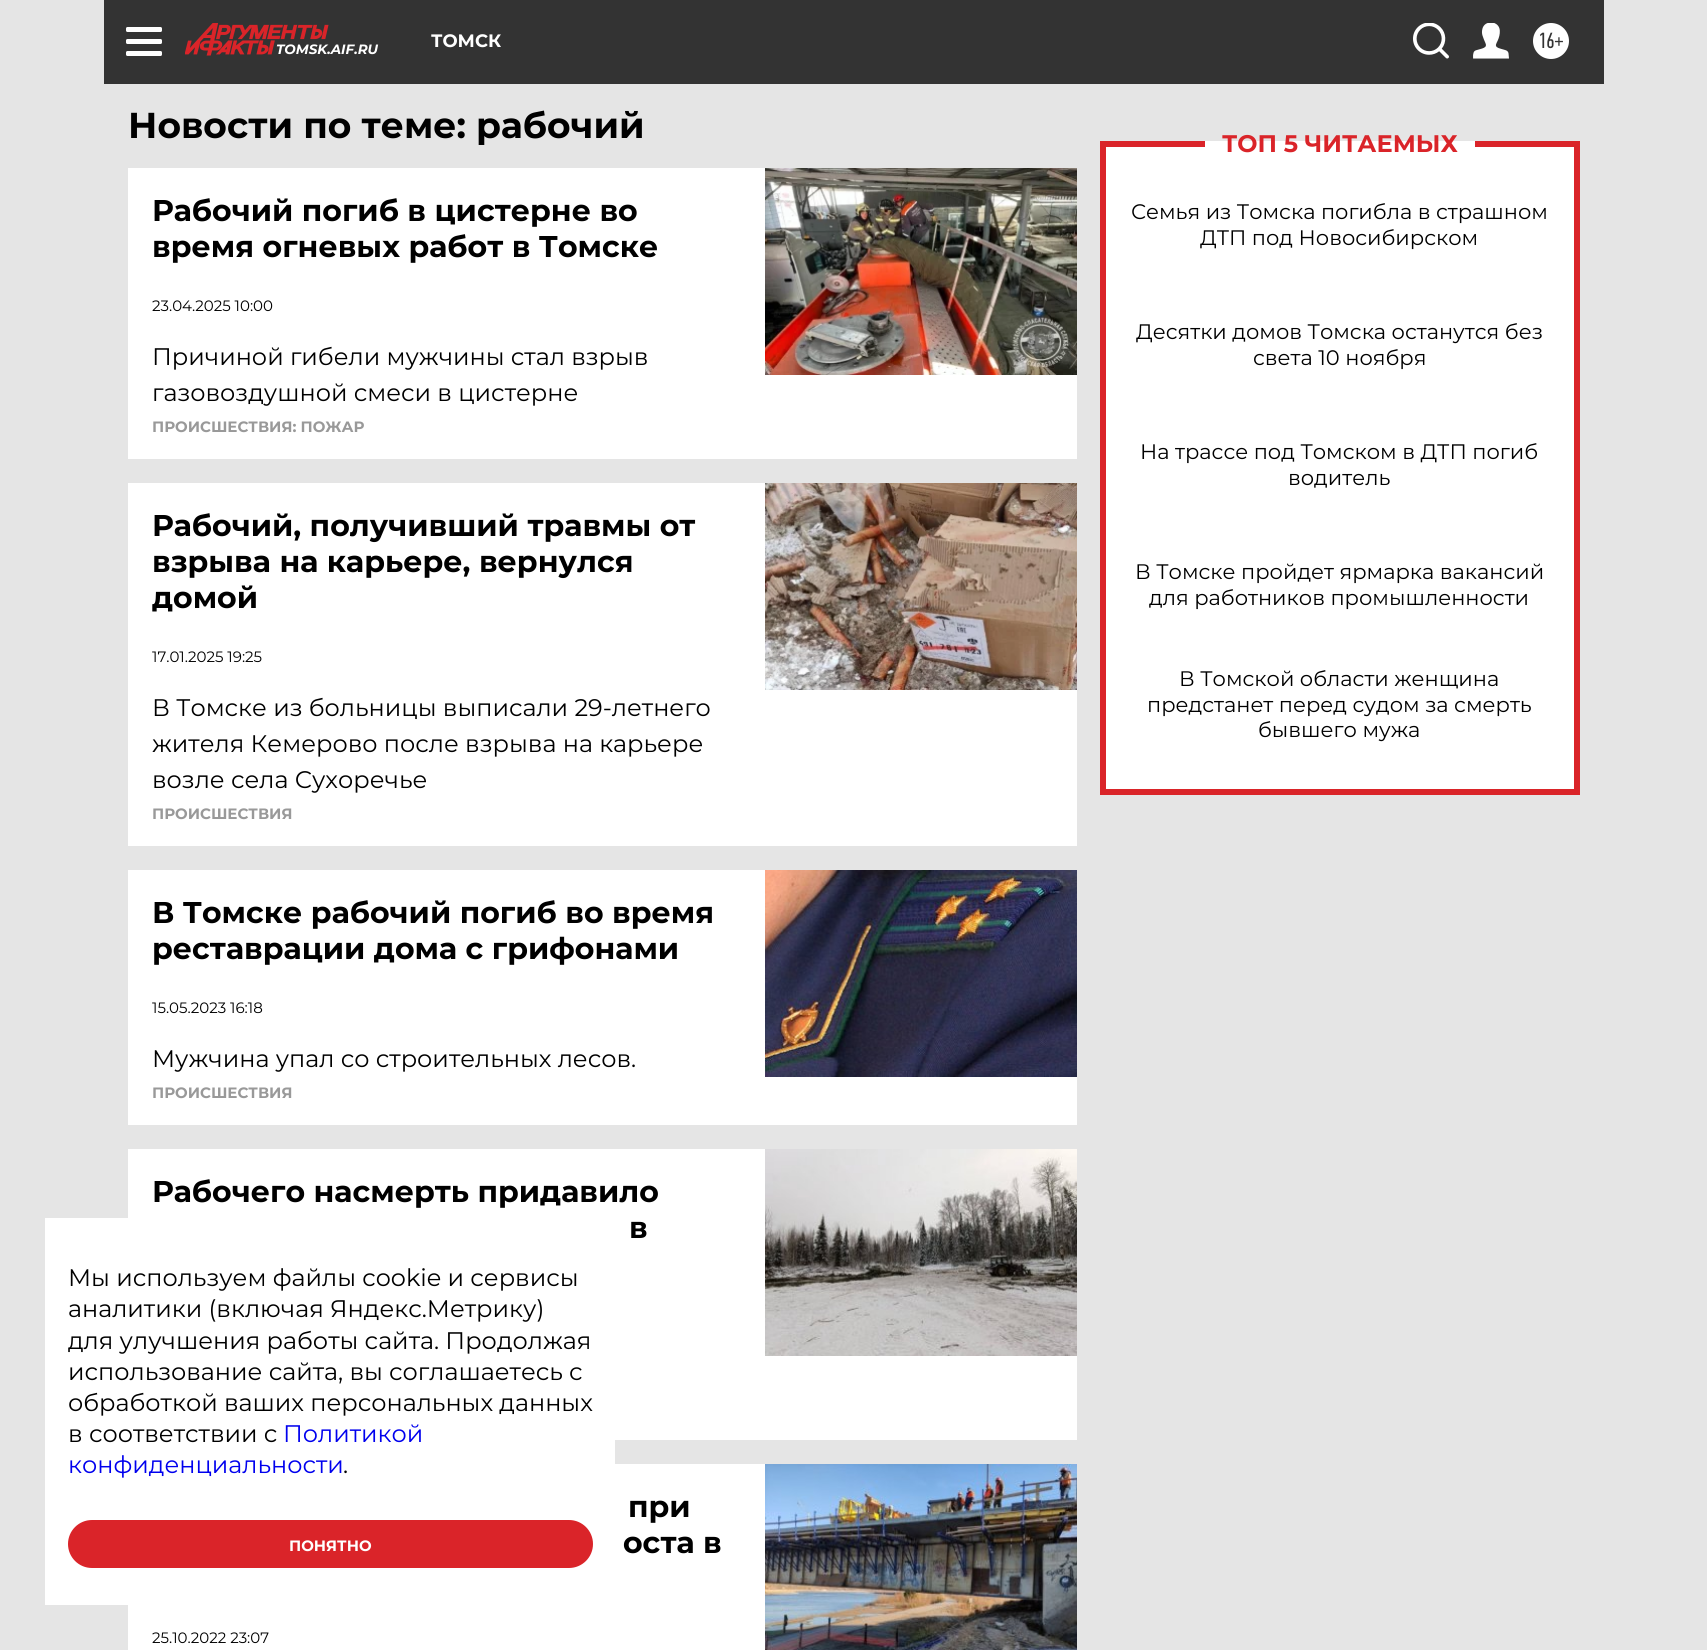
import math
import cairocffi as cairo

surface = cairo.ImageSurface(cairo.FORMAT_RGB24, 1707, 1650)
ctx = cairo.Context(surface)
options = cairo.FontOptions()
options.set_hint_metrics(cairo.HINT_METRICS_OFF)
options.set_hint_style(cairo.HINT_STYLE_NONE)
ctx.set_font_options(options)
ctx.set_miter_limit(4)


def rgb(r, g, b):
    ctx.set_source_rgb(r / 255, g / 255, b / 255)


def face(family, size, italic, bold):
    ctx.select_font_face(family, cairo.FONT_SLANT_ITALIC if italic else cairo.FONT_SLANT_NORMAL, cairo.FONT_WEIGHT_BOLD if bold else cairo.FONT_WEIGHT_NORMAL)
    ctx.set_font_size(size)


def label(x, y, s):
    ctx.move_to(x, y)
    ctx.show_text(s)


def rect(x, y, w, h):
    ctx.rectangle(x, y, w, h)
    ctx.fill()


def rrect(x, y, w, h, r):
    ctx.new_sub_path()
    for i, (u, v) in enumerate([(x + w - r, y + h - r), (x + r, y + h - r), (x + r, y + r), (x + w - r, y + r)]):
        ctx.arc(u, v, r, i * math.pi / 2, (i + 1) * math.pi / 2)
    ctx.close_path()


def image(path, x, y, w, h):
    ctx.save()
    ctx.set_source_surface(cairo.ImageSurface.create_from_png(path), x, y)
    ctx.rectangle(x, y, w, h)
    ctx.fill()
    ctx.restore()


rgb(229, 229, 229)
ctx.paint()
rgb(51, 51, 51)
rect(104, 0, 1500, 84)
rgb(255, 255, 255)
rrect(126, 27, 36, 5, 1.5)
ctx.fill()
rrect(126, 39, 36, 5, 1.5)
ctx.fill()
rrect(126, 51, 36, 5, 1.5)
ctx.fill()
face('Montserrat', 18, 0, 1)
label(431, 47, 'ТОМСК')
image('image0.png', 1413, 23, 36, 36)
image('image1.png', 1473, 23, 36, 36)
ctx.arc(1551, 41, 18, 0, 2 * math.pi)
ctx.fill()
face('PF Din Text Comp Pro', 22, 0, 0)
rgb(51, 51, 51)
label(1538, 48, '16+')
image('image2.png', 185, 23, 144, 33)
face('Montserrat', 13.5, 1, 1)
rgb(255, 255, 255)
label(276, 54, 'TOMSK.AIF.RU')
face('Montserrat', 36, 0, 1)
rgb(0, 0, 0)
label(128, 138, 'Новости по теме: рабочий')
rgb(255, 255, 255)
rect(128, 168, 949, 291)
face('Montserrat', 30, 0, 1)
rgb(0, 0, 0)
label(152, 221, 'Рабочий погиб в цистерне во')
label(152, 257, 'время огневых работ в Томске')
face('Montserrat', 15, 0, 0)
label(152, 311, '23.04.2025 10:00')
face('Montserrat', 24, 0, 0)
label(152, 365, 'Причиной гибели мужчины стал взрыв')
label(152, 401, 'газовоздушной смеси в цистерне')
image('image3.png', 765, 168, 312, 207)
face('Montserrat', 15, 0, 1)
rgb(153, 153, 153)
label(152, 432, 'ПРОИСШЕСТВИЯ: ПОЖАР')
rgb(255, 255, 255)
rect(128, 483, 949, 363)
face('Montserrat', 30, 0, 1)
rgb(0, 0, 0)
label(152, 536, 'Рабочий, получивший травмы от')
label(152, 572, 'взрыва на карьере, вернулся')
label(152, 608, 'домой')
face('Montserrat', 15, 0, 0)
label(152, 662, '17.01.2025 19:25')
face('Montserrat', 24, 0, 0)
label(152, 716, 'В Томске из больницы выписали 29-летнего')
label(152, 752, 'жителя Кемерово после взрыва на карьере')
label(152, 788, 'возле села Сухоречье')
image('image4.png', 765, 483, 312, 207)
face('Montserrat', 15, 0, 1)
rgb(153, 153, 153)
label(152, 819, 'ПРОИСШЕСТВИЯ')
rgb(255, 255, 255)
rect(128, 870, 949, 255)
face('Montserrat', 30, 0, 1)
rgb(0, 0, 0)
label(152, 923, 'В Томске рабочий погиб во время')
label(152, 959, 'реставрации дома с грифонами')
face('Montserrat', 15, 0, 0)
label(152, 1013, '15.05.2023 16:18')
face('Montserrat', 24, 0, 0)
label(152, 1067, 'Мужчина упал со строительных лесов.')
image('image5.png', 765, 870, 312, 207)
face('Montserrat', 15, 0, 1)
rgb(153, 153, 153)
label(152, 1098, 'ПРОИСШЕСТВИЯ')
rgb(255, 255, 255)
rect(128, 1149, 949, 291)
face('Montserrat', 30, 0, 1)
rgb(0, 0, 0)
label(152, 1202, 'Рабочего насмерть придавило')
label(629, 1238, 'в')
image('image6.png', 765, 1149, 312, 207)
rgb(255, 255, 255)
rect(128, 1464, 637, 186)
rgb(0, 0, 0)
label(628, 1517, 'при')
label(623, 1553, 'оста в')
face('Montserrat', 15, 0, 0)
label(152, 1643, '25.10.2022 23:07')
image('image7.png', 765, 1464, 312, 186)
rgb(255, 255, 255)
rect(1106, 141, 468, 648)
rgb(218, 36, 41)
rect(1574, 141, 6, 654)
rect(1100, 789, 480, 6)
rect(1100, 141, 6, 654)
rect(1100, 141, 105, 6)
face('Montserrat', 24, 0, 1)
label(1222, 152, 'ТОП 5 ЧИТАЕМЫХ')
rect(1475, 141, 105, 6)
face('Montserrat', 21, 0, 0)
rgb(0, 0, 0)
label(1131, 219, 'Семья из Томска погибла в страшном')
label(1200, 245, 'ДТП под Новосибирском')
label(1136, 339, 'Десятки домов Томска останутся без')
label(1253, 365, 'света 10 ноября')
label(1140, 459, 'На трассе под Томском в ДТП погиб')
label(1288, 485, 'водитель')
label(1135, 579, 'В Томске пройдет ярмарка вакансий')
label(1149, 605, 'для работников промышленности')
label(1179, 686, 'В Томской области женщина')
label(1147, 712, 'предстанет перед судом за смерть')
label(1258, 737, 'бывшего мужа')
rgb(255, 255, 255)
rect(45, 1218, 570, 387)
face('Montserrat', 24, 0, 0)
rgb(0, 0, 0)
label(68, 1286, 'Мы используем файлы cookie и сервисы')
label(68, 1317, 'аналитики (включая Яндекс.Метрику)')
label(68, 1349, 'для улучшения работы сайта. Продолжая')
label(68, 1380, 'использование сайта, вы соглашаетесь с')
label(68, 1411, 'обработкой ваших персональных данных')
label(68, 1442, 'в соответствии с')
rgb(0, 0, 238)
label(283, 1442, 'Политикой')
label(68, 1473, 'конфиденциальности')
rgb(0, 0, 0)
label(343, 1473, '.')
rgb(218, 36, 41)
rrect(69.5, 1521.5, 522, 45, 22.5)
ctx.fill_preserve()
ctx.set_line_width(3)
ctx.stroke()
face('Montserrat', 15, 0, 1)
rgb(255, 255, 255)
label(289, 1551, 'ПОНЯТНО')
surface.write_to_png('render.png')
